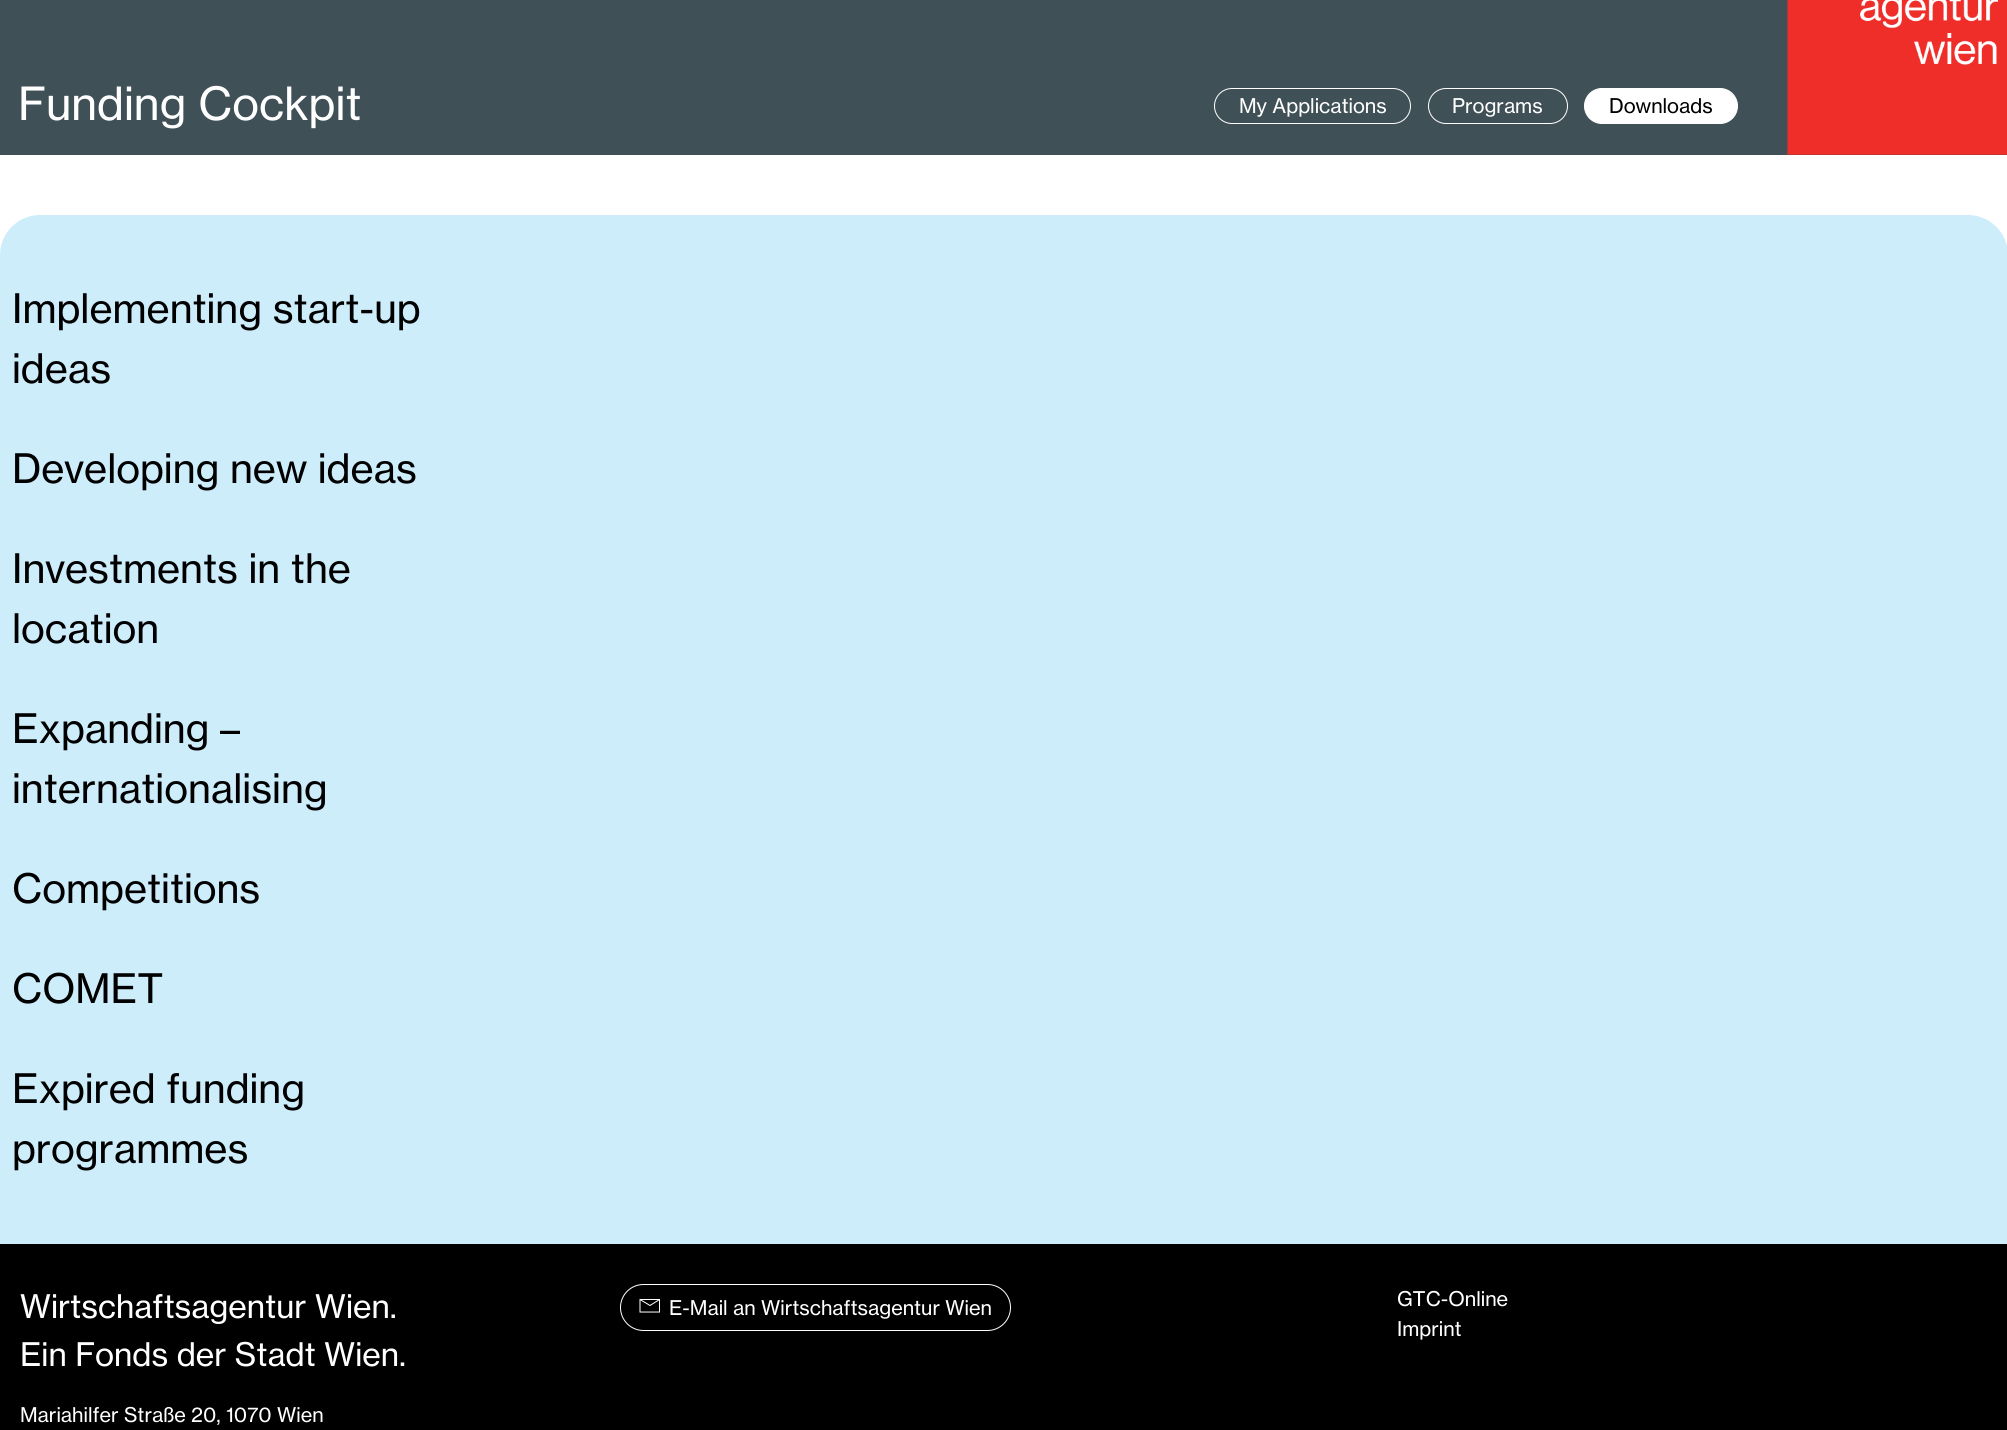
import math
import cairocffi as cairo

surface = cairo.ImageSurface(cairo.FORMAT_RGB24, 2007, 1430)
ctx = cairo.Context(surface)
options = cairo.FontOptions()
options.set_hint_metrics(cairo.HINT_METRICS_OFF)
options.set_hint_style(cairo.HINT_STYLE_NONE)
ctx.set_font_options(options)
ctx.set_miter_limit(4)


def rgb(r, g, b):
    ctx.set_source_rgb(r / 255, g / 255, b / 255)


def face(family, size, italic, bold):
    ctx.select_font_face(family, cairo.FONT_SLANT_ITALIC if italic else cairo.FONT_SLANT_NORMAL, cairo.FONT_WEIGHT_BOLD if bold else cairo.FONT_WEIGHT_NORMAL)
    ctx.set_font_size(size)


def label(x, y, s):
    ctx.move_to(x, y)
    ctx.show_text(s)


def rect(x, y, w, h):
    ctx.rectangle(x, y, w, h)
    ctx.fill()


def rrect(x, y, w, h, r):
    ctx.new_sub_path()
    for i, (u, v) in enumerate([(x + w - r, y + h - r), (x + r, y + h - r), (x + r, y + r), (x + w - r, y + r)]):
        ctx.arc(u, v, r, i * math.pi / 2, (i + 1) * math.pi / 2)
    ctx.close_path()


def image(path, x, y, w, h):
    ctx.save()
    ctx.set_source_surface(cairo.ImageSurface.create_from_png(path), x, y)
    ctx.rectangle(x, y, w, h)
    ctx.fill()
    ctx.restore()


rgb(255, 255, 255)
ctx.paint()
rgb(64, 80, 87)
rect(0, 0, 2007, 155)
face('Neue Haas Grotesk', 45, 0, 0)
rgb(255, 255, 255)
label(18, 120, 'Funding Cockpit')
rrect(1214.5, 88.5, 196, 35, 17.5)
ctx.set_line_width(1)
ctx.stroke()
face('Neue Haas Grotesk', 20, 0, 0)
label(1239, 113, 'My Applications')
rrect(1428.5, 88.5, 139, 35, 17.5)
ctx.stroke()
label(1452, 113, 'Programs')
rrect(1584.5, 88.5, 153, 35, 17.5)
ctx.fill_preserve()
ctx.stroke()
rgb(0, 0, 0)
label(1609, 113, 'Downloads')
image('image0.png', 1787, 0, 220, 155)
rgb(205, 237, 251)
ctx.new_path()
ctx.move_to(40, 215)
ctx.line_to(1968, 215)
ctx.curve_to(1990, 215, 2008, 233, 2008, 255)
ctx.line_to(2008, 1244)
ctx.line_to(0, 1244)
ctx.line_to(0, 255)
ctx.curve_to(0, 233, 18, 215, 40, 215)
ctx.close_path()
ctx.fill()
face('Neue Haas Grotesk', 40, 0, 0)
rgb(0, 0, 0)
label(12, 323, 'Implementing start-up')
label(12, 383, 'ideas')
label(12, 483, 'Developing new ideas')
label(12, 583, 'Investments in the')
label(12, 643, 'location')
label(12, 743, 'Expanding –')
label(12, 803, 'internationalising')
label(12, 903, 'Competitions')
label(12, 1003, 'COMET')
label(12, 1103, 'Expired funding')
label(12, 1163, 'programmes')
rect(0, 1244, 2007, 186)
face('Neue Haas Grotesk', 32, 0, 0)
rgb(255, 255, 255)
label(20, 1318, 'Wirtschaftsagentur Wien.')
label(20, 1366, 'Ein Fonds der Stadt Wien.')
face('Neue Haas Grotesk', 20, 0, 0)
label(20, 1422, 'Mariahilfer Straße 20, 1070 Wien')
rrect(620.5, 1284.5, 390, 46, 23)
ctx.stroke()
ctx.new_path()
ctx.move_to(640, 1299.5)
ctx.line_to(650, 1305.5)
ctx.line_to(659.5, 1299.5)
ctx.move_to(659.5, 1312)
ctx.line_to(640, 1312)
ctx.line_to(640, 1299.5)
ctx.line_to(659.5, 1299.5)
ctx.close_path()
ctx.stroke()
label(669, 1315, 'E-Mail an Wirtschaftsagentur Wien')
label(1397, 1306, 'GTC-Online')
label(1397, 1336, 'Imprint')
surface.write_to_png('render.png')
